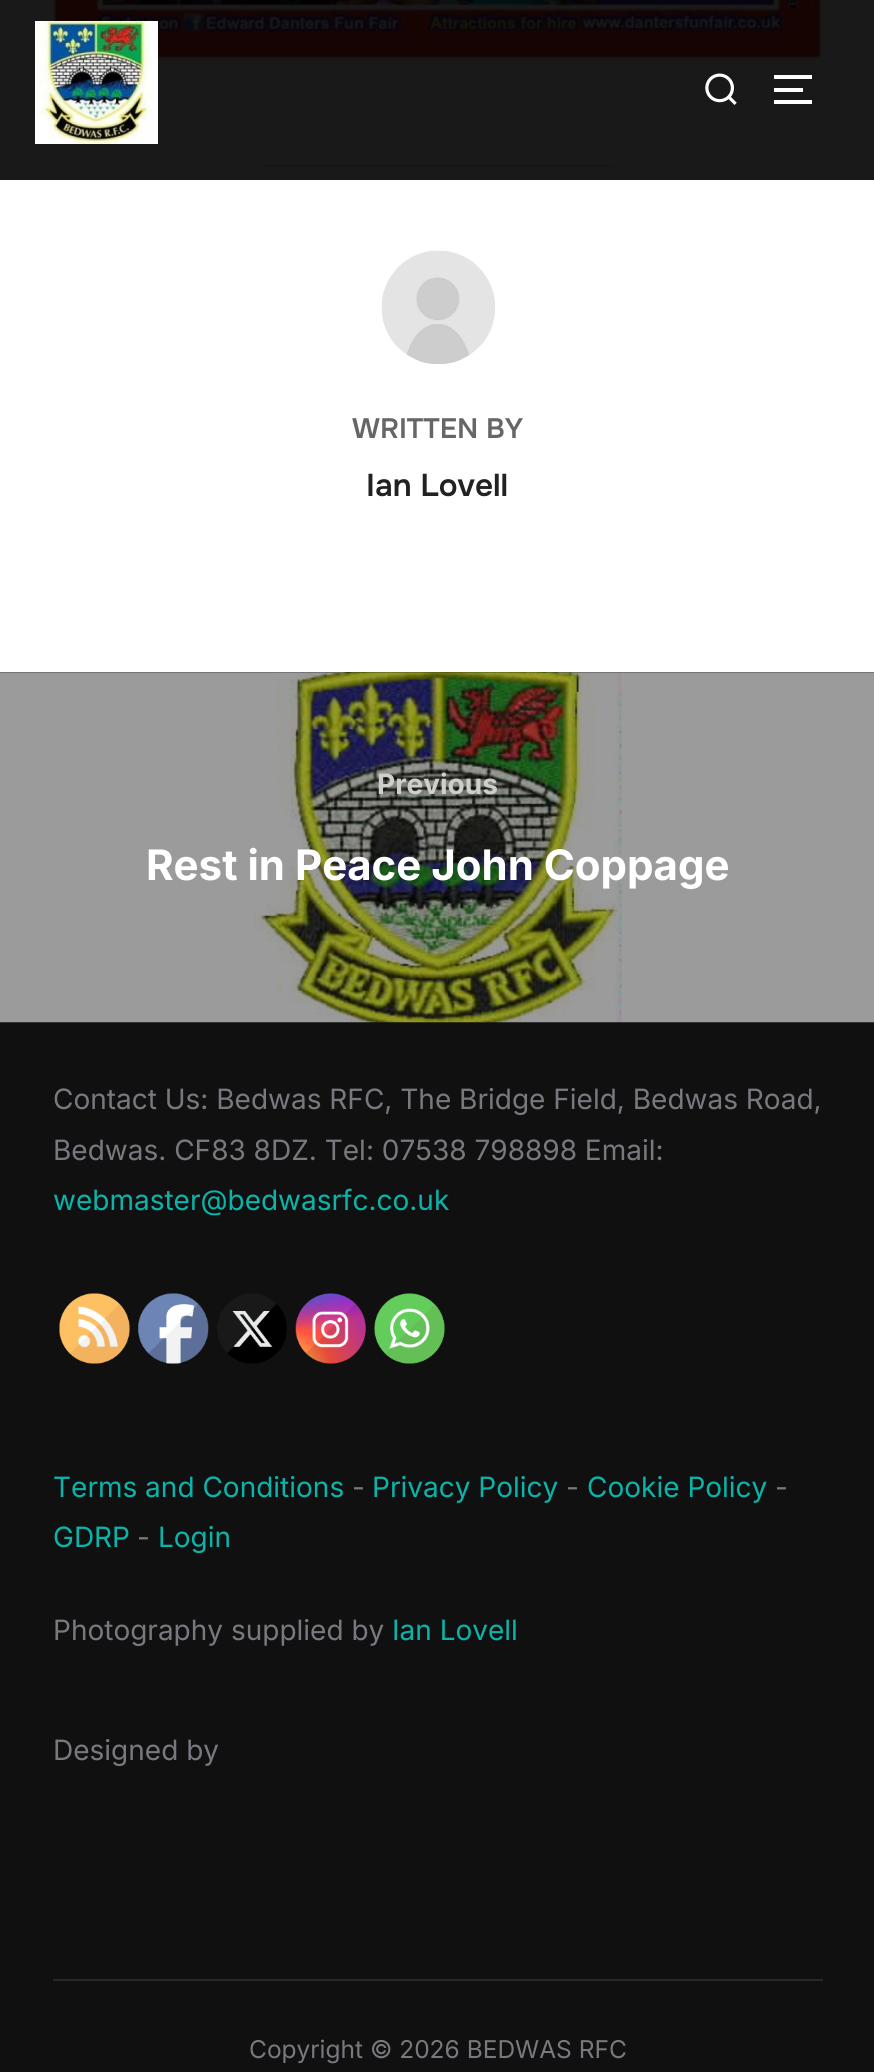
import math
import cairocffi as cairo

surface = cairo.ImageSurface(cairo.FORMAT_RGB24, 874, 2072)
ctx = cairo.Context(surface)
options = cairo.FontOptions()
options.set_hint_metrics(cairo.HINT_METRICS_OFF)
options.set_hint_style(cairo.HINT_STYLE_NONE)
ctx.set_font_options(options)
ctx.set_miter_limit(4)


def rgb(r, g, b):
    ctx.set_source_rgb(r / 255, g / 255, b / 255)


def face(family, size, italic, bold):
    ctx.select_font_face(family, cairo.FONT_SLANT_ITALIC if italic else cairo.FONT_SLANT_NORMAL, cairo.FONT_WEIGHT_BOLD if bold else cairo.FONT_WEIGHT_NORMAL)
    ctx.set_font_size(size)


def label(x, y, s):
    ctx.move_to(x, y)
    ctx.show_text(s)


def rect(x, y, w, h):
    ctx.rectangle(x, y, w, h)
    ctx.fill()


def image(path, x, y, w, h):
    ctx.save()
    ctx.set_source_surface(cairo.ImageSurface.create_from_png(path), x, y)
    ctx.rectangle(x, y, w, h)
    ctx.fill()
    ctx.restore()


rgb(255, 255, 255)
ctx.paint()
rgb(25, 25, 25)
rect(0, 0, 874, 180)
image('image2.png', 52, 0, 771, 60)
image('image0.png', 35, 21, 123, 123)
image('image1.png', 705, 73, 32, 32)
rgb(255, 255, 255)
rect(774, 75, 38, 4)
rect(774, 88, 29, 4)
rect(774, 100, 38, 4)
rgb(22, 22, 22)
rect(263, 165, 350, 2)
image('image3.png', 381, 250, 114, 114)
face('Onest SemiBold', 28, 0, 0)
rgb(102, 102, 102)
label(352, 438, 'WRITTEN BY')
face('Onest SemiBold', 31.5, 0, 0)
rgb(34, 34, 34)
label(366, 496, 'Ian Lovell')
rgb(6, 6, 6)
rect(0, 672, 874, 350)
rgb(16, 16, 16)
rect(0, 1022, 874, 1050)
image('image4.png', 0, 672, 874, 351)
face('Inter', 28, 0, 1)
rgb(206, 207, 205)
label(377, 794, 'Previous')
face('Inter', 42, 0, 1)
rgb(255, 255, 255)
label(146, 880, 'Rest in Peace John Coppage')
face('Inter', 28, 0, 0)
rgb(120, 120, 127)
label(53, 1109, 'Contact Us: Bedwas RFC, The Bridge Field, Bedwas Road,')
label(53, 1160, 'Bedwas. CF83 8DZ. Tel: 07538 798898 Email:')
rgb(11, 180, 170)
label(53, 1210, 'webmaster@bedwasrfc.co.uk')
image('image5.png', 59, 1293, 71, 71)
image('image6.png', 138, 1293, 71, 71)
image('image7.png', 217, 1293, 70, 71)
image('image8.png', 295, 1293, 71, 71)
image('image9.png', 374, 1293, 71, 71)
label(53, 1497, 'Terms and Conditions')
rgb(120, 120, 127)
label(352, 1497, '-')
rgb(11, 180, 170)
label(372, 1497, 'Privacy Policy')
rgb(120, 120, 127)
label(566, 1497, '-')
rgb(11, 180, 170)
label(587, 1497, 'Cookie Policy')
rgb(120, 120, 127)
label(775, 1497, '-')
rgb(11, 180, 170)
label(53, 1547, 'GDRP')
rgb(120, 120, 127)
label(137, 1547, '-')
rgb(11, 180, 170)
label(158, 1547, 'Login')
rgb(120, 120, 127)
label(53, 1640, 'Photography supplied by')
rgb(11, 180, 170)
label(392, 1640, 'Ian Lovell')
rgb(120, 120, 127)
label(53, 1760, 'Designed by')
rgb(40, 40, 40)
rect(53, 1979, 770, 2)
face('Inter', 24.5, 0, 0)
rgb(120, 120, 127)
label(249, 2058, 'Copyright © 2026 BEDWAS RFC')
surface.write_to_png('render.png')
